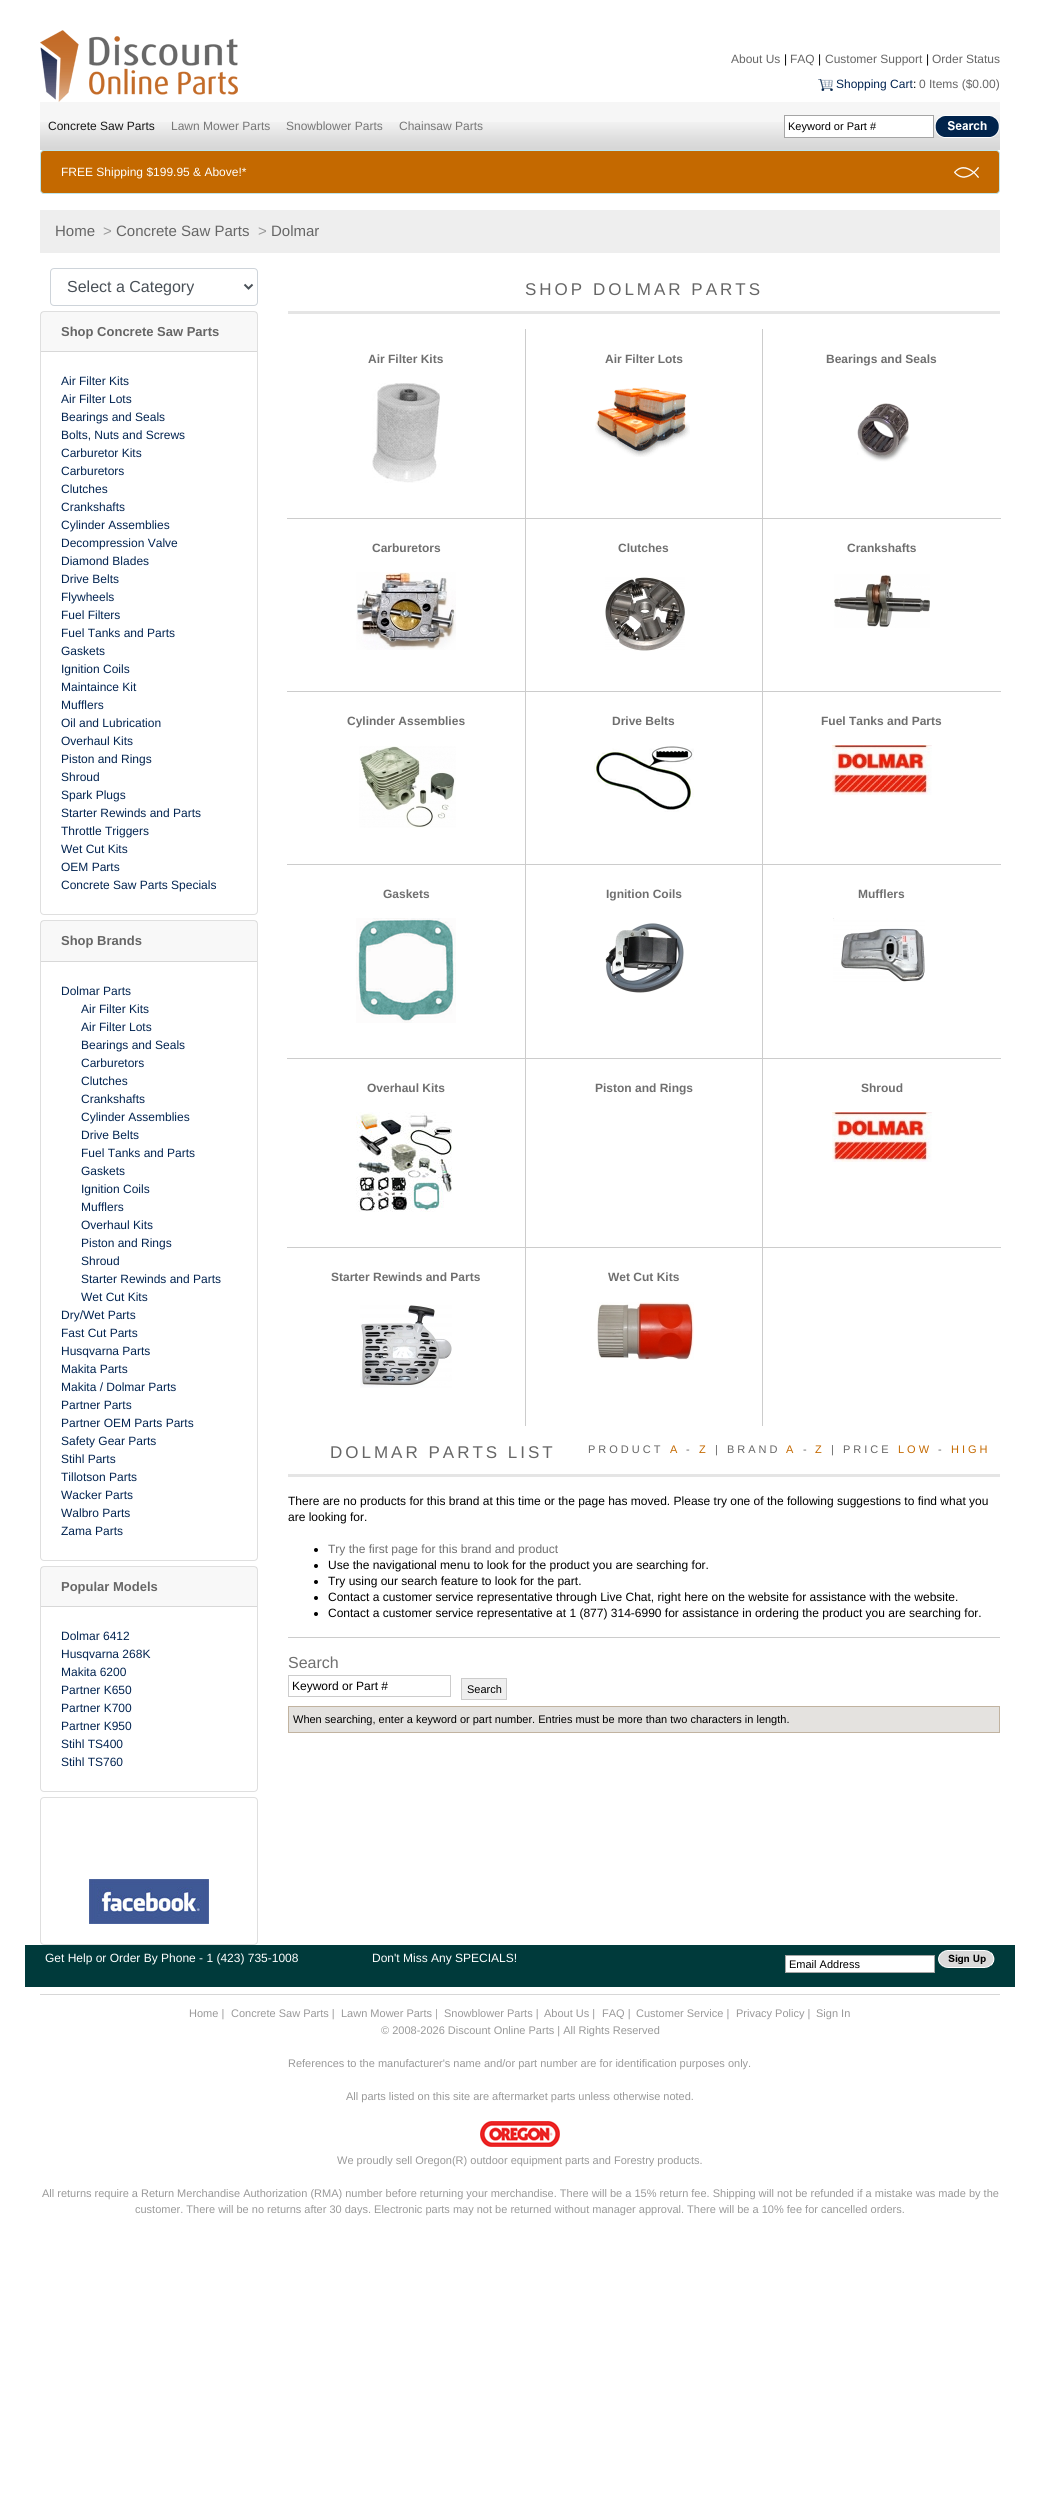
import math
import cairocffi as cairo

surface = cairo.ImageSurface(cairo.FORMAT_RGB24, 1040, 2514)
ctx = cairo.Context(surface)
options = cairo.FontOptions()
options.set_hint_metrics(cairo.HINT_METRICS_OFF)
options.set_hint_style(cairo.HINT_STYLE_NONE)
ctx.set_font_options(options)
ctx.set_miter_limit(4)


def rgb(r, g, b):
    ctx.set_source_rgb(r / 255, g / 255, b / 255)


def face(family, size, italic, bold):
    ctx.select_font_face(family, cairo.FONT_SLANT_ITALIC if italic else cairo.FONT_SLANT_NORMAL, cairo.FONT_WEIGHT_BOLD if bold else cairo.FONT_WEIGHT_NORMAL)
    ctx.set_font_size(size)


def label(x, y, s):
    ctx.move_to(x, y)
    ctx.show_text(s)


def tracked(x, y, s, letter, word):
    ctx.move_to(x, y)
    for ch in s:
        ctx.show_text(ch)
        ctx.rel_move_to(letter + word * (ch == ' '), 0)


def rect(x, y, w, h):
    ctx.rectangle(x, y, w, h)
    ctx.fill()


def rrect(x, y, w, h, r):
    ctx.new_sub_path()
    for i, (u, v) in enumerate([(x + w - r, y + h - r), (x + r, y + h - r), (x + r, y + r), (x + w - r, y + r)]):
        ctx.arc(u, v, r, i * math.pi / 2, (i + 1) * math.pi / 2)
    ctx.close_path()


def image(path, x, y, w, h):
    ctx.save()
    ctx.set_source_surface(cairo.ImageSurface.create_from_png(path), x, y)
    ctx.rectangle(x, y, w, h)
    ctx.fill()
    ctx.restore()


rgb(255, 255, 255)
ctx.paint()
image('image0.png', 40, 30, 198, 72)
face('Liberation Sans', 12, 0, 0)
rgb(102, 102, 102)
label(731, 63, 'About Us')
rgb(0, 0, 0)
label(784, 63, '|')
rgb(102, 102, 102)
label(790, 63, 'FAQ')
rgb(0, 0, 0)
label(818, 63, '|')
rgb(102, 102, 102)
label(825, 63, 'Customer Support')
rgb(0, 0, 0)
label(926, 63, '|')
rgb(102, 102, 102)
label(932, 63, 'Order Status')
image('image1.png', 818, 79, 15, 12)
rgb(2, 36, 81)
label(836, 88, 'Shopping Cart')
rgb(0, 0, 0)
label(913, 88, ':')
rgb(102, 102, 102)
label(919, 88, '0 Items ($0.00)')
rgb(246, 246, 246)
rect(40, 102, 960, 20)
image('image2.png', 40, 122, 960, 28)
rgb(24, 24, 24)
label(48, 130, 'Concrete Saw Parts')
rgb(119, 119, 119)
label(171, 130, 'Lawn Mower Parts')
label(286, 130, 'Snowblower Parts')
label(399, 130, 'Chainsaw Parts')
rgb(255, 255, 255)
ctx.rectangle(784.5, 115.5, 149, 22)
ctx.fill_preserve()
rgb(165, 165, 165)
ctx.set_line_width(1)
ctx.stroke()
face('Liberation Sans', 11, 0, 0)
rgb(0, 0, 0)
label(788, 130, 'Keyword or Part #')
image('image3.png', 934, 115, 66, 23)
rgb(196, 105, 0)
rrect(40.5, 150.5, 959, 43, 3.5)
ctx.fill_preserve()
rgb(190, 229, 235)
ctx.stroke()
face('Liberation Sans', 12, 0, 0)
rgb(255, 255, 255)
label(61, 176, 'FREE Shipping $199.95 & Above!*')
image('image4.png', 954, 167, 25, 11)
rgb(238, 238, 238)
rect(40, 210, 960, 43)
face('Liberation Sans', 15, 0, 0)
rgb(102, 102, 102)
label(55, 236, 'Home')
rgb(153, 153, 153)
label(103, 236, '>')
rgb(102, 102, 102)
label(116, 236, 'Concrete Saw Parts')
rgb(153, 153, 153)
label(258, 236, '>')
rgb(102, 102, 102)
label(271, 236, 'Dolmar')
rrect(50.5, 268.5, 207, 37, 3.5)
rgb(206, 212, 218)
ctx.stroke()
ctx.new_path()
ctx.move_to(244.5, 284.5)
ctx.line_to(248.5, 288.5)
ctx.line_to(252.5, 284.5)
rgb(73, 80, 87)
ctx.set_line_width(2)
ctx.stroke()
face('Liberation Sans', 16, 0, 0)
label(67, 292, 'Select a Category')
rrect(40.5, 311.5, 217, 603, 3.5)
rgb(223, 223, 223)
ctx.set_line_width(1)
ctx.stroke()
ctx.set_source_rgba(0, 0, 0, 0.03)
rect(41, 312, 216, 39)
rgb(216, 216, 216)
rect(41, 351, 216, 1)
face('Liberation Sans', 13, 0, 1)
rgb(102, 102, 102)
label(61, 336, 'Shop Concrete Saw Parts')
face('Liberation Sans', 12, 0, 0)
rgb(2, 36, 81)
label(61, 385, 'Air Filter Kits')
label(61, 403, 'Air Filter Lots')
label(61, 421, 'Bearings and Seals')
label(61, 439, 'Bolts, Nuts and Screws')
label(61, 457, 'Carburetor Kits')
label(61, 475, 'Carburetors')
label(61, 493, 'Clutches')
label(61, 511, 'Crankshafts')
label(61, 529, 'Cylinder Assemblies')
label(61, 547, 'Decompression Valve')
label(61, 565, 'Diamond Blades')
label(61, 583, 'Drive Belts')
label(61, 601, 'Flywheels')
label(61, 619, 'Fuel Filters')
label(61, 637, 'Fuel Tanks and Parts')
label(61, 655, 'Gaskets')
label(61, 673, 'Ignition Coils')
label(61, 691, 'Maintaince Kit')
label(61, 709, 'Mufflers')
label(61, 727, 'Oil and Lubrication')
label(61, 745, 'Overhaul Kits')
label(61, 763, 'Piston and Rings')
label(61, 781, 'Shroud')
label(61, 799, 'Spark Plugs')
label(61, 817, 'Starter Rewinds and Parts')
label(61, 835, 'Throttle Triggers')
label(61, 853, 'Wet Cut Kits')
label(61, 871, 'OEM Parts')
label(61, 889, 'Concrete Saw Parts Specials')
rrect(40.5, 920.5, 217, 640, 3.5)
rgb(223, 223, 223)
ctx.stroke()
ctx.set_source_rgba(0, 0, 0, 0.03)
rect(41, 921, 216, 40)
rgb(216, 216, 216)
rect(41, 961, 216, 1)
face('Liberation Sans', 13, 0, 1)
rgb(102, 102, 102)
label(61, 945, 'Shop Brands')
face('Liberation Sans', 12, 0, 0)
rgb(2, 36, 81)
label(61, 995, 'Dolmar Parts')
label(81, 1013, 'Air Filter Kits')
label(81, 1031, 'Air Filter Lots')
label(81, 1049, 'Bearings and Seals')
label(81, 1067, 'Carburetors')
label(81, 1085, 'Clutches')
label(81, 1103, 'Crankshafts')
label(81, 1121, 'Cylinder Assemblies')
label(81, 1139, 'Drive Belts')
label(81, 1157, 'Fuel Tanks and Parts')
label(81, 1175, 'Gaskets')
label(81, 1193, 'Ignition Coils')
label(81, 1211, 'Mufflers')
label(81, 1229, 'Overhaul Kits')
label(81, 1247, 'Piston and Rings')
label(81, 1265, 'Shroud')
label(81, 1283, 'Starter Rewinds and Parts')
label(81, 1301, 'Wet Cut Kits')
label(61, 1319, 'Dry/Wet Parts')
label(61, 1337, 'Fast Cut Parts')
label(61, 1355, 'Husqvarna Parts')
label(61, 1373, 'Makita Parts')
label(61, 1391, 'Makita / Dolmar Parts')
label(61, 1409, 'Partner Parts')
label(61, 1427, 'Partner OEM Parts Parts')
label(61, 1445, 'Safety Gear Parts')
label(61, 1463, 'Stihl Parts')
label(61, 1481, 'Tillotson Parts')
label(61, 1499, 'Wacker Parts')
label(61, 1517, 'Walbro Parts')
label(61, 1535, 'Zama Parts')
rrect(40.5, 1566.5, 217, 225, 3.5)
rgb(223, 223, 223)
ctx.stroke()
ctx.set_source_rgba(0, 0, 0, 0.03)
rect(41, 1567, 216, 39)
rgb(216, 216, 216)
rect(41, 1606, 216, 1)
face('Liberation Sans', 13, 0, 1)
rgb(102, 102, 102)
label(61, 1591, 'Popular Models')
face('Liberation Sans', 12, 0, 0)
rgb(2, 36, 81)
label(61, 1640, 'Dolmar 6412')
label(61, 1658, 'Husqvarna 268K')
label(61, 1676, 'Makita 6200')
label(61, 1694, 'Partner K650')
label(61, 1712, 'Partner K700')
label(61, 1730, 'Partner K950')
label(61, 1748, 'Stihl TS400')
label(61, 1766, 'Stihl TS760')
rrect(40.5, 1797.5, 217, 147, 3.5)
rgb(223, 223, 223)
ctx.stroke()
image('image5.png', 89, 1879, 120, 45)
rgb(229, 229, 229)
rect(288, 311, 712, 3)
face('Liberation Sans', 17, 0, 0)
rgb(102, 102, 102)
tracked(525, 295, 'SHOP DOLMAR PARTS', 3, 0)
rgb(204, 204, 204)
rect(762, 1247, 1, 179)
rect(762, 1247, 239, 1)
rect(762, 1058, 1, 190)
rect(762, 1058, 239, 1)
rect(762, 864, 1, 195)
rect(762, 864, 239, 1)
rect(762, 691, 1, 174)
rect(762, 691, 239, 1)
rect(762, 518, 1, 174)
rect(762, 518, 239, 1)
rect(762, 329, 1, 190)
rect(525, 1247, 1, 179)
rect(525, 1247, 238, 1)
rect(525, 1058, 1, 190)
rect(525, 1058, 238, 1)
rect(525, 864, 1, 195)
rect(525, 864, 238, 1)
rect(525, 691, 1, 174)
rect(525, 691, 238, 1)
rect(525, 518, 1, 174)
rect(525, 518, 238, 1)
rect(525, 329, 1, 190)
rect(287, 518, 239, 1)
face('Liberation Sans', 12, 0, 1)
rgb(111, 111, 111)
label(368, 363, 'Air Filter Kits')
image('image6.png', 372, 383, 68, 100)
label(605, 363, 'Air Filter Lots')
image('image7.png', 595, 387, 95, 70)
label(826, 363, 'Bearings and Seals')
image('image8.png', 857, 403, 53, 59)
rgb(204, 204, 204)
rect(287, 691, 239, 1)
rgb(111, 111, 111)
label(372, 552, 'Carburetors')
image('image9.png', 356, 572, 100, 78)
label(618, 552, 'Clutches')
image('image10.png', 605, 577, 80, 74)
label(847, 552, 'Crankshafts')
image('image11.png', 834, 574, 96, 54)
rgb(204, 204, 204)
rect(287, 864, 239, 1)
rgb(111, 111, 111)
label(347, 725, 'Cylinder Assemblies')
image('image12.png', 359, 746, 97, 82)
label(612, 725, 'Drive Belts')
image('image13.png', 594, 746, 100, 66)
label(821, 725, 'Fuel Tanks and Parts')
image('image14.png', 832, 745, 100, 50)
rgb(204, 204, 204)
rect(287, 1058, 239, 1)
rgb(111, 111, 111)
label(383, 898, 'Gaskets')
image('image15.png', 356, 918, 100, 105)
label(606, 898, 'Ignition Coils')
image('image16.png', 605, 923, 79, 70)
label(858, 898, 'Mufflers')
image('image17.png', 833, 918, 92, 64)
rgb(204, 204, 204)
rect(287, 1247, 239, 1)
rgb(111, 111, 111)
label(367, 1092, 'Overhaul Kits')
image('image18.png', 356, 1112, 96, 100)
label(595, 1092, 'Piston and Rings')
label(861, 1092, 'Shroud')
image('image14.png', 832, 1112, 100, 50)
label(331, 1281, 'Starter Rewinds and Parts')
image('image19.png', 360, 1305, 92, 83)
label(608, 1281, 'Wet Cut Kits')
image('image20.png', 597, 1302, 97, 58)
rgb(229, 229, 229)
rect(288, 1474, 712, 3)
face('Liberation Sans', 17, 0, 0)
rgb(102, 102, 102)
tracked(330, 1458, 'DOLMAR PARTS LIST', 3, 0)
face('Liberation Sans', 11, 0, 0)
tracked(588, 1453, 'PRODUCT', 3, 0)
rgb(196, 105, 0)
tracked(670, 1453, 'A', 3, 0)
rgb(102, 102, 102)
tracked(686, 1453, '-', 3, 0)
rgb(196, 105, 0)
tracked(699, 1453, 'Z', 3, 0)
rgb(102, 102, 102)
tracked(715, 1453, '| BRAND', 3, 0)
rgb(196, 105, 0)
tracked(786, 1453, 'A', 3, 0)
rgb(102, 102, 102)
tracked(803, 1453, '-', 3, 0)
rgb(196, 105, 0)
tracked(815, 1453, 'Z', 3, 0)
rgb(102, 102, 102)
tracked(831, 1453, '| PRICE', 3, 0)
rgb(196, 105, 0)
tracked(898, 1453, 'LOW', 3, 0)
rgb(102, 102, 102)
tracked(938, 1453, '-', 3, 0)
rgb(196, 105, 0)
tracked(951, 1453, 'HIGH', 3, 0)
face('Liberation Sans', 12, 0, 0)
rgb(0, 0, 0)
label(288, 1505, 'There are no products for this brand at this time or the page has moved. Please try one of the following suggestions to find what you')
label(288, 1521, 'are looking for.')
ctx.new_path()
ctx.arc(316, 1550, 2, 0, 2 * math.pi)
ctx.fill()
rgb(111, 111, 111)
label(328, 1553, 'Try the first page for this brand and product')
rgb(0, 0, 0)
ctx.new_path()
ctx.arc(316, 1566, 2, 0, 2 * math.pi)
ctx.fill()
label(328, 1569, 'Use the navigational menu to look for the product you are searching for.')
ctx.new_path()
ctx.arc(316, 1582, 2, 0, 2 * math.pi)
ctx.fill()
label(328, 1585, 'Try using our search feature to look for the part.')
ctx.new_path()
ctx.arc(316, 1598, 2, 0, 2 * math.pi)
ctx.fill()
label(328, 1601, 'Contact a customer service representative through Live Chat, right here on the website for assistance with the website.')
ctx.new_path()
ctx.arc(316, 1614, 2, 0, 2 * math.pi)
ctx.fill()
label(328, 1617, 'Contact a customer service representative at 1 (877) 314-6990 for assistance in ordering the product you are searching for.')
rgb(204, 204, 204)
rect(288, 1637, 712, 1)
face('Liberation Sans', 16, 0, 0)
rgb(111, 111, 111)
label(288, 1668, 'Search')
ctx.rectangle(288.5, 1675.5, 162, 21)
rgb(204, 204, 204)
ctx.stroke()
face('Liberation Sans', 12, 0, 0)
rgb(0, 0, 0)
label(292, 1690, 'Keyword or Part #')
rgb(239, 239, 239)
ctx.rectangle(461.5, 1678.5, 45, 21)
ctx.fill_preserve()
rgb(204, 204, 204)
ctx.stroke()
face('Liberation Sans', 11, 0, 0)
rgb(0, 0, 0)
label(467, 1693, 'Search')
rgb(228, 226, 223)
ctx.rectangle(288.5, 1706.5, 711, 26)
ctx.fill_preserve()
rgb(193, 179, 160)
ctx.stroke()
rgb(0, 0, 0)
label(293, 1723, 'When searching, enter a keyword or part number. Entries must be more than two characters in length.')
rgb(0, 58, 59)
rect(25, 1945, 990, 42)
face('Liberation Sans', 12, 0, 0)
rgb(255, 255, 255)
label(45, 1962, 'Get Help or Order By Phone - 1 (423) 735-1008')
label(372, 1962, 'Don\'t Miss Any SPECIALS!')
ctx.rectangle(785.5, 1955.5, 149, 17)
ctx.fill_preserve()
rgb(165, 165, 165)
ctx.stroke()
face('Liberation Sans', 11, 0, 0)
rgb(0, 0, 0)
label(789, 1968, 'Email Address')
image('image21.png', 938, 1950, 57, 18)
rgb(215, 215, 215)
rect(40, 1994, 960, 1)
rgb(153, 153, 153)
label(189, 2017, 'Home |')
label(231, 2017, 'Concrete Saw Parts |')
label(341, 2017, 'Lawn Mower Parts |')
label(444, 2017, 'Snowblower Parts |')
label(544, 2017, 'About Us |')
label(602, 2017, 'FAQ |')
label(636, 2017, 'Customer Service |')
label(736, 2017, 'Privacy Policy |')
label(816, 2017, 'Sign In')
label(381, 2034, '© 2008-2026 Discount Online Parts | All Rights Reserved')
label(288, 2067, 'References to the manufacturer\'s name and/or part number are for identification purposes only.')
label(346, 2100, 'All parts listed on this site are aftermarket parts unless otherwise noted.')
image('image22.png', 480, 2121, 80, 26)
label(337, 2164, 'We proudly sell Oregon(R) outdoor equipment parts and Forestry products.')
label(42, 2197, 'All returns require a Return Merchandise Authorization (RMA) number before returning your merchandise. There will be a 15% return fee. Shipping will not be refunded if a mistake was made by the')
label(135, 2213, 'customer. There will be no returns after 30 days. Electronic parts may not be returned without manager approval. There will be a 10% fee for cancelled orders.')
surface.write_to_png('render.png')
